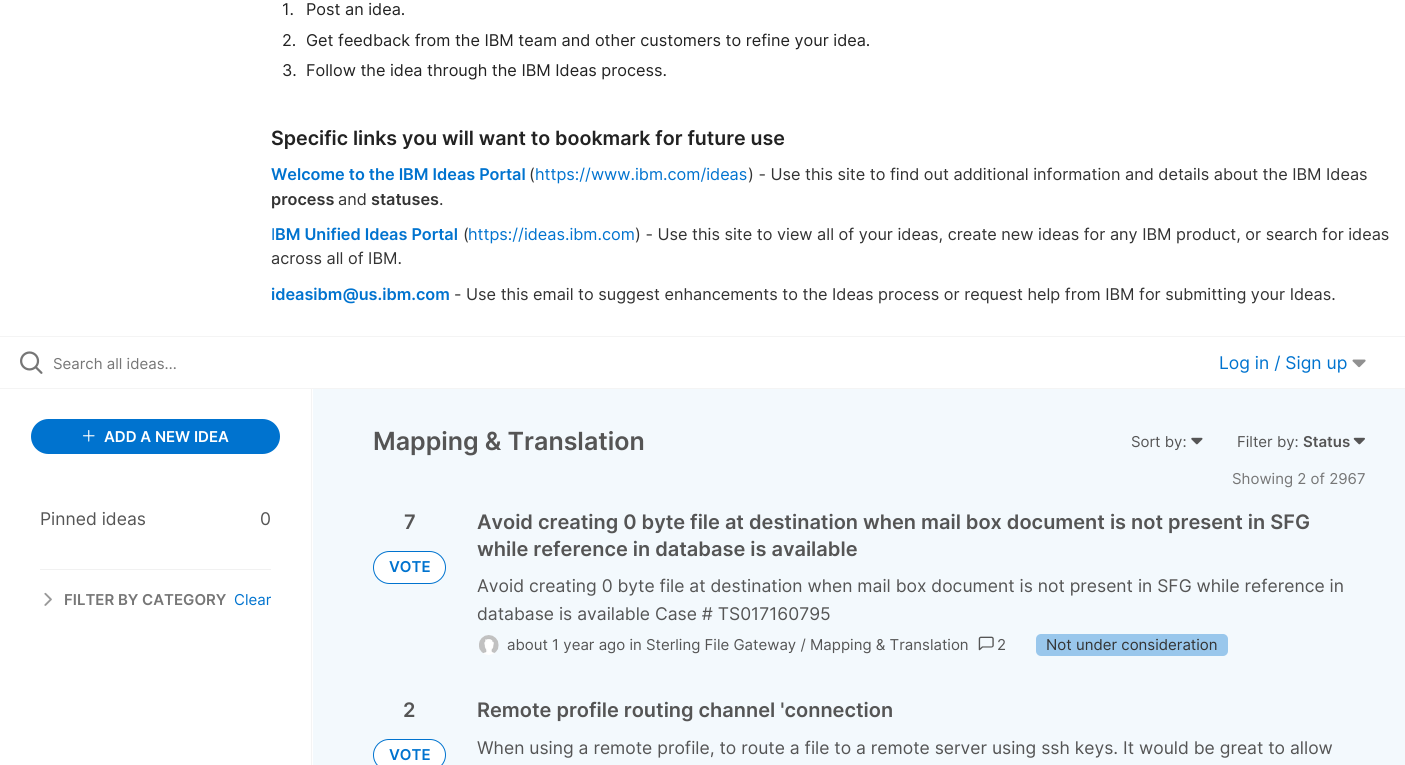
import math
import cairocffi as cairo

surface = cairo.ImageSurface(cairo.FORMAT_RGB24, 1405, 765)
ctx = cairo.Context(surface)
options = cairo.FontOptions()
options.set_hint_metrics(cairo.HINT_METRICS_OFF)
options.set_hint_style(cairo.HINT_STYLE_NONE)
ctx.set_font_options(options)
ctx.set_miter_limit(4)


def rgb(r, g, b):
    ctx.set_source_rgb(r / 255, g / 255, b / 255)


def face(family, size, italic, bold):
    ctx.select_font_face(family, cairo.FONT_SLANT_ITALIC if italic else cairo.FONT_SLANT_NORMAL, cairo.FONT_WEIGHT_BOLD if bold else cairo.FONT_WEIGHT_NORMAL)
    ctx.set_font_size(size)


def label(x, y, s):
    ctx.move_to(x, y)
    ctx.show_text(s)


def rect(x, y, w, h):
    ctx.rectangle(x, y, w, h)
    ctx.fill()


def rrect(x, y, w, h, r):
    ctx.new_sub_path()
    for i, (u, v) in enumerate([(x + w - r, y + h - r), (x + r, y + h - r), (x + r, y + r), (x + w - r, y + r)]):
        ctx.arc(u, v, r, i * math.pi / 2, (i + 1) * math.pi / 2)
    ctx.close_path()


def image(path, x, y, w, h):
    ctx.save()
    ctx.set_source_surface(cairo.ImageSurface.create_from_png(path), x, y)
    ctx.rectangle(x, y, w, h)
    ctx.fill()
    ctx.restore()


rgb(243, 249, 253)
ctx.paint()
rgb(255, 255, 255)
rect(0, 0, 1405, 388)
rgb(244, 244, 244)
rect(0, 336, 1405, 1)
face('Inter', 16.25, 0, 0)
rgb(34, 34, 34)
label(282, 15, '1.')
label(306, 15, 'Post an idea.')
label(282, 46, '2.')
label(306, 46, 'Get feedback from the IBM team and other customers to refine your idea.')
label(282, 76, '3.')
label(306, 76, 'Follow the idea through the IBM Ideas process.')
face('Inter SemiBold', 19.65, 0, 0)
label(271, 145, 'Specific links you will want to bookmark for future use')
face('Inter SemiBold', 16.25, 0, 0)
rgb(0, 115, 207)
label(271, 180, 'Welcome to the IBM Ideas Portal')
face('Inter', 16.25, 0, 0)
rgb(51, 51, 51)
label(529, 180, '(')
rgb(0, 115, 207)
label(535, 180, 'https://www.ibm.com/ideas')
rgb(51, 51, 51)
label(748, 180, ') - Use this site to find out additional information and details about the IBM Ideas')
face('Inter SemiBold', 16.25, 0, 0)
label(271, 205, 'process')
face('Inter', 16.25, 0, 0)
label(338, 205, 'and')
face('Inter SemiBold', 16.25, 0, 0)
label(371, 205, 'statuses')
face('Inter', 16.25, 0, 0)
label(439, 205, '.')
rgb(0, 115, 207)
label(271, 240, 'I')
face('Inter SemiBold', 16.25, 0, 0)
label(275, 240, 'BM Unified Ideas Portal')
face('Inter', 16.25, 0, 0)
rgb(51, 51, 51)
label(463, 240, '(')
rgb(0, 115, 207)
label(468, 240, 'https://ideas.ibm.com')
rgb(51, 51, 51)
label(635, 240, ') - Use this site to view all of your ideas, create new ideas for any IBM product, or search for ideas')
label(271, 264, 'across all of IBM.')
face('Inter SemiBold', 16.25, 0, 0)
rgb(0, 115, 207)
label(271, 300, 'ideasibm@us.ibm.com')
face('Inter', 16.25, 0, 0)
rgb(51, 51, 51)
label(454, 300, '- Use this email to suggest enhancements to the Ideas process or request help from IBM for submitting your Ideas.')
rgb(244, 244, 244)
rect(0, 388, 1405, 1)
image('image0.png', 20, 351, 23, 23)
face('Inter', 15, 0, 0)
rgb(118, 118, 118)
label(53, 369, 'Search all ideas…')
face('Inter', 17.5, 0, 0)
rgb(0, 115, 207)
label(1219, 369, 'Log in / Sign up')
image('image1.png', 1352, 359, 14, 9)
rgb(255, 255, 255)
rect(0, 389, 313, 376)
rgb(244, 244, 244)
rect(311, 389, 1, 376)
rgb(0, 115, 207)
rrect(31, 419, 249, 35, 17.5)
ctx.fill()
image('image2.png', 82, 430, 13, 12)
face('Inter SemiBold', 15, 0, 0)
rgb(255, 255, 255)
label(104, 442, 'ADD A NEW IDEA')
face('Inter', 17.5, 0, 0)
rgb(85, 85, 85)
label(40, 525, 'Pinned ideas')
label(260, 525, '0')
rgb(241, 241, 241)
rect(40, 569, 231, 1)
image('image3.png', 44, 592, 8, 14)
face('Inter SemiBold', 15, 0, 0)
rgb(118, 118, 118)
label(64, 605, 'FILTER BY CATEGORY')
face('Inter', 15, 0, 0)
rgb(0, 115, 207)
label(234, 605, 'Clear')
face('Inter SemiBold', 25, 0, 0)
rgb(85, 85, 85)
label(373, 450, 'Mapping & Translation')
face('Inter', 15, 0, 0)
label(1131, 447, 'Sort by:')
image('image4.png', 1191, 437, 12, 8)
label(1237, 447, 'Filter by:')
face('Inter SemiBold', 15, 0, 0)
label(1303, 447, 'Status')
image('image5.png', 1353, 437, 12, 8)
face('Inter', 15, 0, 0)
rgb(118, 118, 118)
label(1232, 484, 'Showing 2 of 2967')
face('Inter SemiBold', 20, 0, 0)
rgb(85, 85, 85)
label(404, 529, '7')
rgb(255, 255, 255)
rrect(373.5, 551.5, 72, 32, 16)
ctx.fill_preserve()
rgb(0, 115, 207)
ctx.set_line_width(1)
ctx.stroke()
face('Inter SemiBold', 15, 0, 0)
label(389, 572, 'VOTE')
face('Inter SemiBold', 20, 0, 0)
rgb(85, 85, 85)
label(477, 529, 'Avoid creating 0 byte file at destination when mail box document is not present in SFG')
label(477, 556, 'while reference in database is available')
face('Inter', 17.5, 0, 0)
label(477, 592, 'Avoid creating 0 byte file at destination when mail box document is not present in SFG while reference in')
label(477, 620, 'database is available Case # TS017160795')
image('image6.png', 479, 635, 20, 20)
face('Inter', 15, 0, 0)
label(507, 650, 'about 1 year ago in Sterling File Gateway / Mapping & Translation')
image('image7.png', 978, 636, 16, 15)
label(997, 650, '2')
rgb(153, 199, 236)
rrect(1036, 634, 192, 22, 5)
ctx.fill()
rgb(51, 51, 51)
label(1046, 650, 'Not under consideration')
face('Inter SemiBold', 20, 0, 0)
rgb(85, 85, 85)
label(403, 717, '2')
rgb(255, 255, 255)
rrect(373.5, 739.5, 72, 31, 15.5)
ctx.fill_preserve()
rgb(0, 115, 207)
ctx.stroke()
face('Inter SemiBold', 15, 0, 0)
label(389, 760, 'VOTE')
face('Inter SemiBold', 20, 0, 0)
rgb(85, 85, 85)
label(477, 717, 'Remote profile routing channel \'connection')
face('Inter', 17.5, 0, 0)
label(477, 754, 'When using a remote profile, to route a file to a remote server using ssh keys. It would be great to allow')
surface.write_to_png('render.png')
